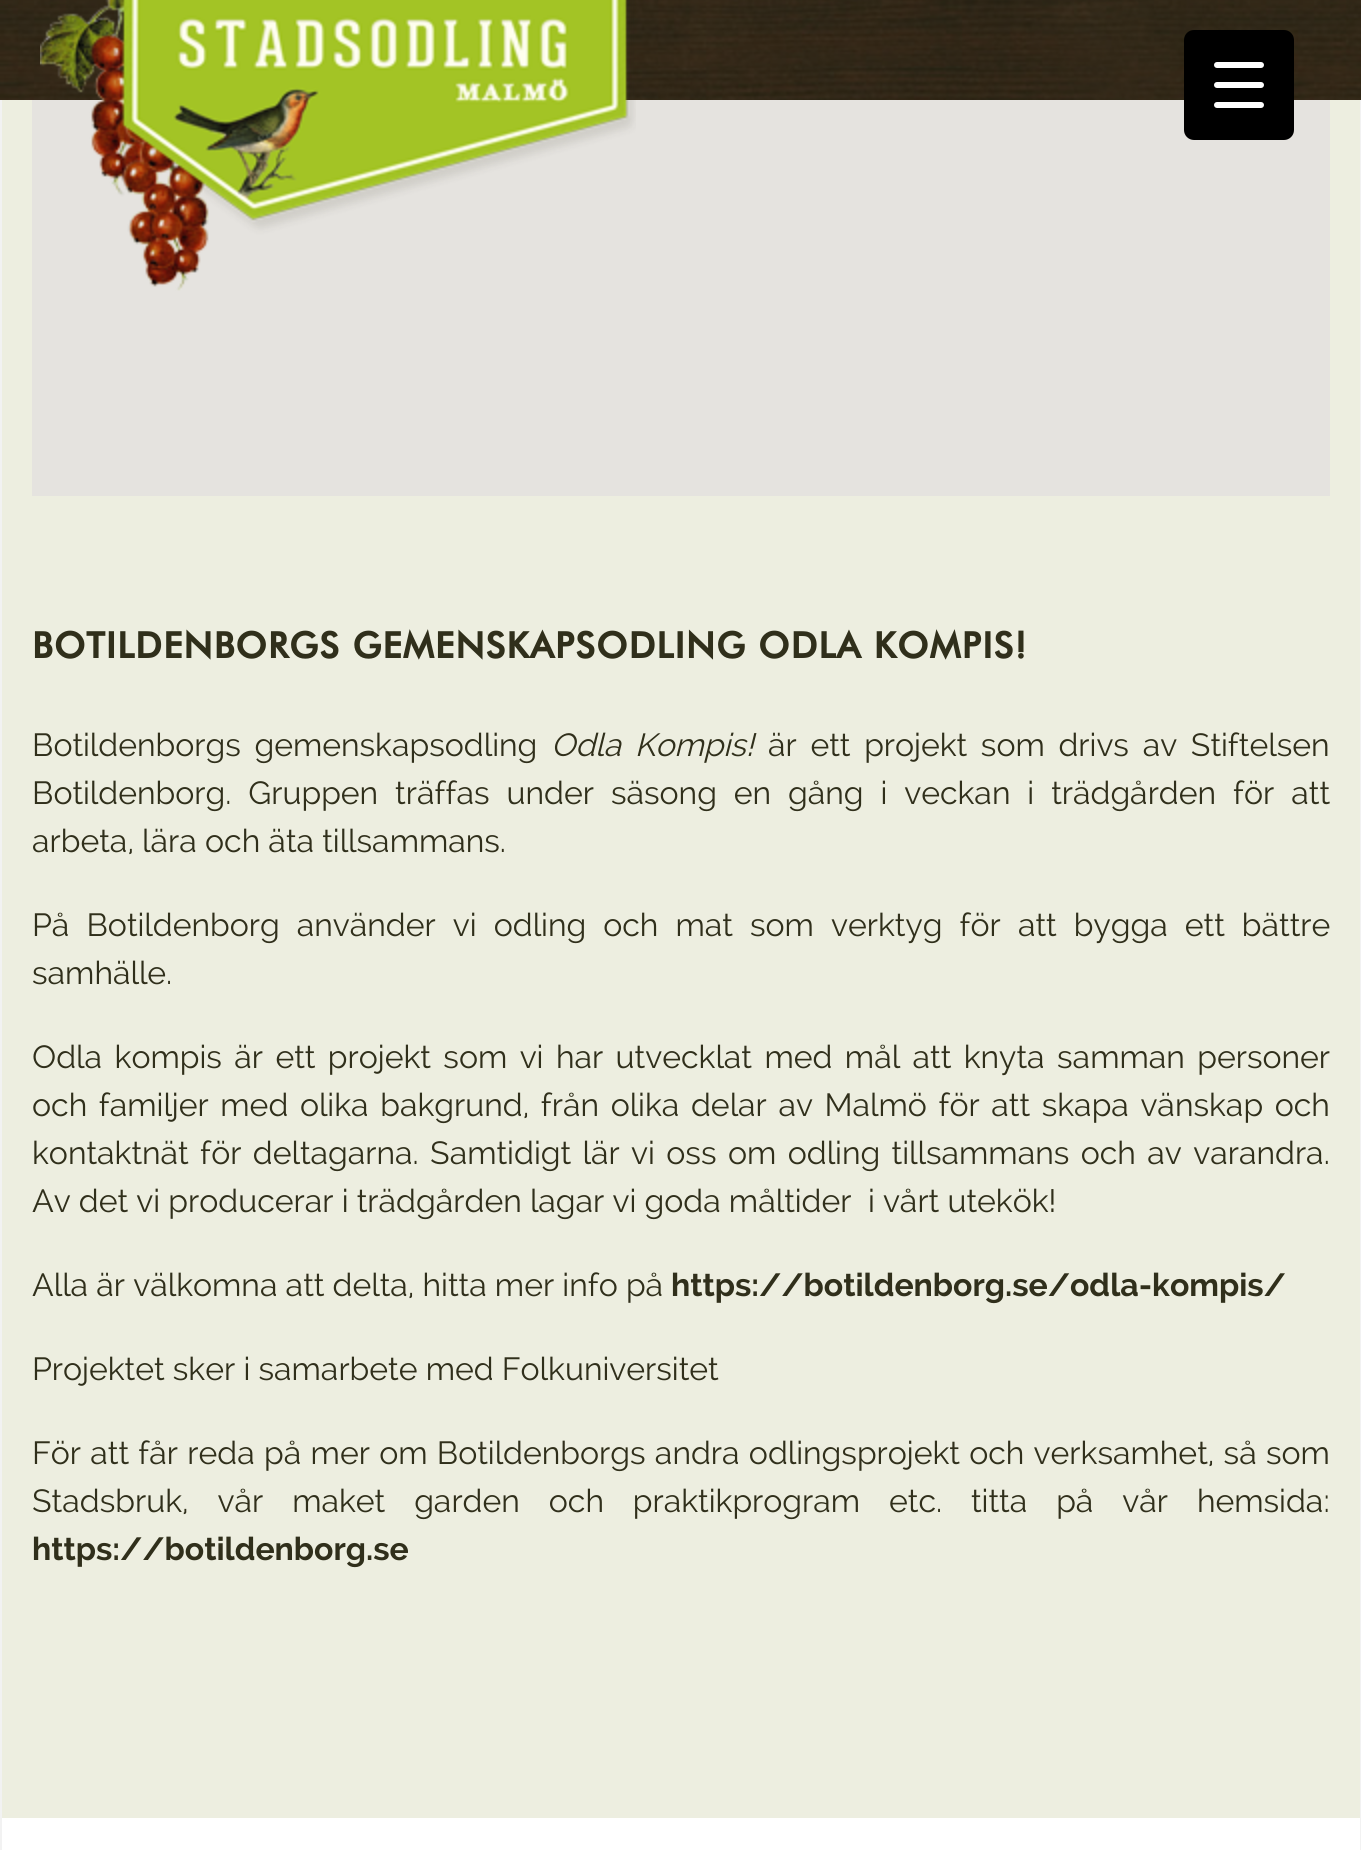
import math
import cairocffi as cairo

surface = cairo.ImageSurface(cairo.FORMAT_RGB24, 1361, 1850)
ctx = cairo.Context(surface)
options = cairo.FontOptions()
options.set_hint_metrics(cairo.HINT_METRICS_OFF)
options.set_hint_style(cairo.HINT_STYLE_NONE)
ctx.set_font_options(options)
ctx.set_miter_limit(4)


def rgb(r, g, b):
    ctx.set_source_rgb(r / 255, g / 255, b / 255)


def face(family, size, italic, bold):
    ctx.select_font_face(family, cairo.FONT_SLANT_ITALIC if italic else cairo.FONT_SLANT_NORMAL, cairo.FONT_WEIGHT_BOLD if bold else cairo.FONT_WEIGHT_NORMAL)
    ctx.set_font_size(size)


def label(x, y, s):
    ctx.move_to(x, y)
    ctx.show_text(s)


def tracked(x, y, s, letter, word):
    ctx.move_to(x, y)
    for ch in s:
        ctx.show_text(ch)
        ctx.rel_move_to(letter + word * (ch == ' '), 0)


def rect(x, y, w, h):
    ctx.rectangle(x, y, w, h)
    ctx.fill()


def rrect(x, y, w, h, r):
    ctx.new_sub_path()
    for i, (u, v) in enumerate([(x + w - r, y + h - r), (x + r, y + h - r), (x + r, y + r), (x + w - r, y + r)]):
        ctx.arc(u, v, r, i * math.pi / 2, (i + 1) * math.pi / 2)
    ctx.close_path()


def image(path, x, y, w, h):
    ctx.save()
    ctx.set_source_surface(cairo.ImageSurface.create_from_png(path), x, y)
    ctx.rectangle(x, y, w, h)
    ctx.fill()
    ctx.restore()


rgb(242, 242, 242)
ctx.paint()
image('image0.png', 0, 0, 1361, 100)
rgb(237, 238, 224)
rect(2, 100, 1358, 1718)
rgb(229, 227, 223)
rect(32, 100, 1298, 396)
rgb(0, 0, 0)
rrect(1184, 30, 110, 110, 10)
ctx.fill()
rgb(255, 255, 255)
rrect(1214, 82, 50, 6, 3)
ctx.fill()
rrect(1214, 62, 50, 6, 3)
ctx.fill()
rrect(1214, 102, 50, 6, 3)
ctx.fill()
image('image1.png', 40, 0, 596, 291)
face('Futura', 36, 0, 1)
rgb(48, 47, 27)
tracked(32, 658, 'BOTILDENBORGS GEMENSKAPSODLING ODLA KOMPIS!', 1.2, 0)
face('Raleway', 32, 0, 0)
tracked(32, 756, 'Botildenborgs gemenskapsodling', 0, 5.5)
face('Raleway', 32, 1, 0)
tracked(551, 756, 'Odla Kompis!', 0, 5.5)
face('Raleway', 32, 0, 0)
tracked(768, 756, 'är ett projekt som drivs av Stiftelsen', 0, 5.5)
tracked(32, 804, 'Botildenborg. Gruppen träffas under säsong en gång i veckan i trädgården för att', 0, 8.75)
label(32, 852, 'arbeta, lära och äta tillsammans.')
tracked(32, 936, 'På Botildenborg använder vi odling och mat som verktyg för att bygga ett bättre', 0, 8.9)
label(32, 984, 'samhälle.')
tracked(32, 1068, 'Odla kompis är ett projekt som vi har utvecklat med mål att knyta samman personer', 0, 4.25)
tracked(32, 1116, 'och familjer med olika bakgrund, från olika delar av Malmö för att skapa vänskap och', 0, 3.4)
tracked(32, 1164, 'kontaktnät för deltagarna. Samtidigt lär vi oss om odling tillsammans och av varandra.', 0, 3.25)
label(32, 1212, 'Av det vi producerar i trädgården lagar vi goda måltider  i vårt utekök!')
label(32, 1296, 'Alla är välkomna att delta, hitta mer info på')
face('Raleway', 32, 0, 1)
label(671, 1296, 'https://botildenborg.se/odla-kompis/')
face('Raleway', 32, 0, 0)
label(32, 1380, 'Projektet sker i samarbete med Folkuniversitet')
tracked(32, 1464, 'För att får reda på mer om Botildenborgs andra odlingsprojekt och verksamhet, så som', 0, 1.1)
tracked(32, 1512, 'Stadsbruk, vår maket garden och praktikprogram etc. titta på vår hemsida:', 0, 20.75)
face('Raleway', 32, 0, 1)
label(32, 1560, 'https://botildenborg.se')
rgb(255, 255, 255)
rect(2, 1818, 1358, 32)
surface.write_to_png('render.png')
